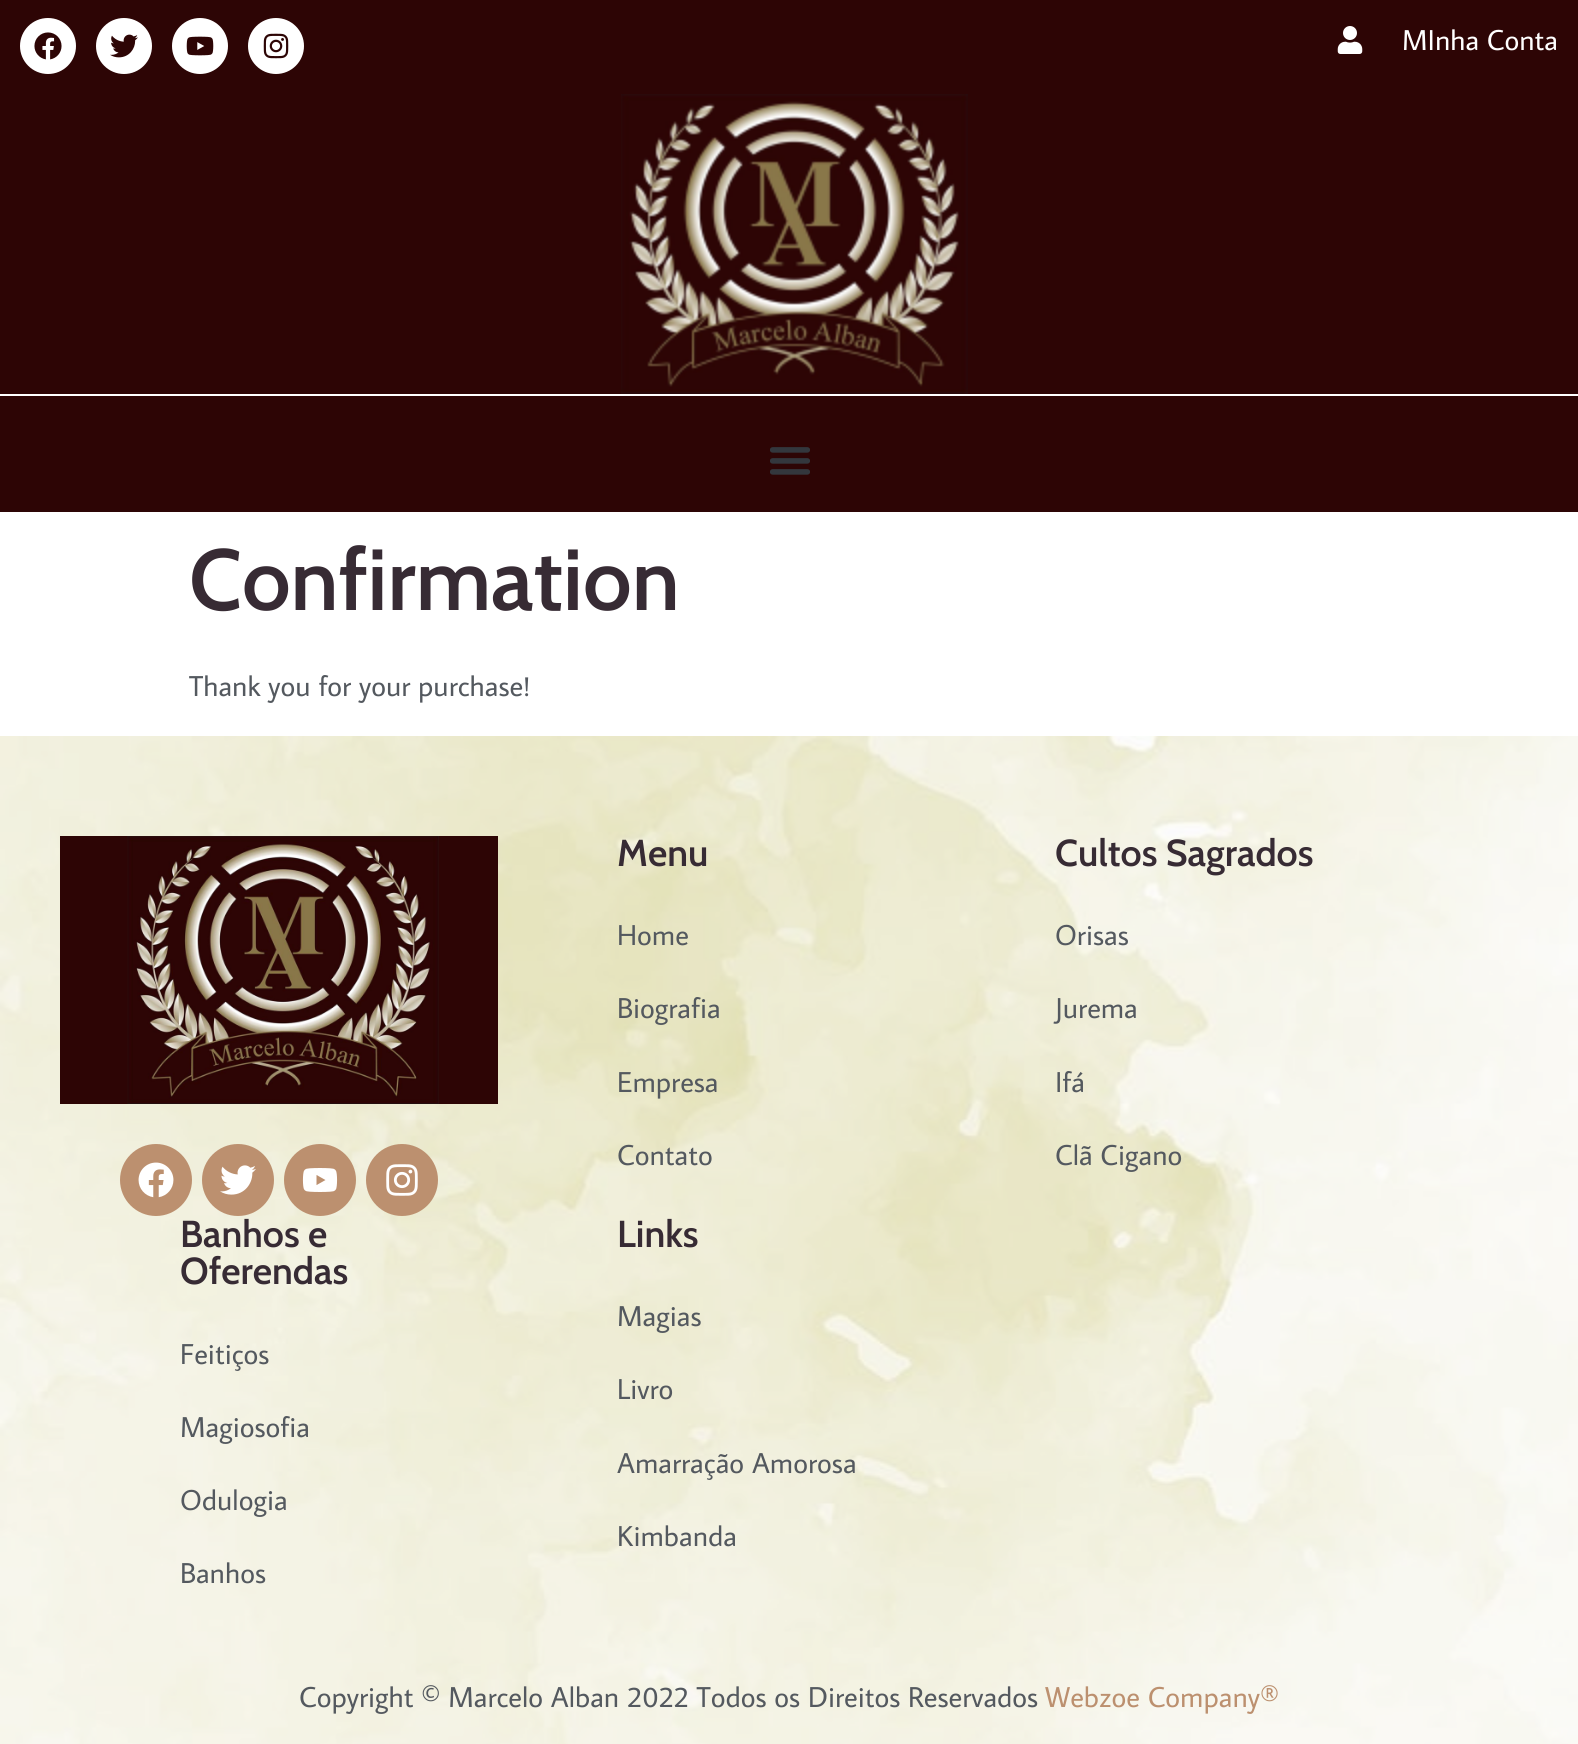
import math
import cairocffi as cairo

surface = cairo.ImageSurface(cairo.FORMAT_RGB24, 1578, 1744)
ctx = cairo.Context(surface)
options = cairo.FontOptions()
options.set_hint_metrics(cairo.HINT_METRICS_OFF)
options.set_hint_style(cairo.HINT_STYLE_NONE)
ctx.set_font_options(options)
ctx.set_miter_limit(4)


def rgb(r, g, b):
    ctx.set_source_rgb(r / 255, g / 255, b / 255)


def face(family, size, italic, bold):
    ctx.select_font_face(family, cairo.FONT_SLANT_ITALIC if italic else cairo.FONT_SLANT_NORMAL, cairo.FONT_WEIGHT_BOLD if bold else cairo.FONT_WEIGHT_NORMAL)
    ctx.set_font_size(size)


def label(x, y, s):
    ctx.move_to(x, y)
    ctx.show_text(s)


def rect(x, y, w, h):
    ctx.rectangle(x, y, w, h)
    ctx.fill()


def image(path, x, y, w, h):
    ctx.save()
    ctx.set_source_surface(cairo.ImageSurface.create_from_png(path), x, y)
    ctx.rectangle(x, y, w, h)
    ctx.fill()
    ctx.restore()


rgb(255, 255, 255)
ctx.paint()
rgb(45, 5, 5)
rect(0, 0, 1578, 394)
rgb(255, 255, 255)
ctx.arc(48, 46, 28, 0, 2 * math.pi)
ctx.fill()
image('image0.png', 34, 32, 28, 28)
ctx.arc(124, 46, 28, 0, 2 * math.pi)
ctx.fill()
image('image1.png', 110, 34, 28, 24)
ctx.arc(200, 46, 28, 0, 2 * math.pi)
ctx.fill()
image('image2.png', 186, 36, 28, 20)
ctx.arc(276, 46, 28, 0, 2 * math.pi)
ctx.fill()
image('image3.png', 263, 33, 26, 26)
image('image4.png', 1337, 26, 26, 28)
face('Average Sans', 28.8, 0, 0)
label(1402, 50, 'MInha Conta')
image('image5.png', 621, 94, 347, 300)
rgb(45, 5, 5)
rect(0, 396, 1578, 116)
image('image6.png', 770, 447, 40, 28)
face('Cabin SemiBold', 86.5, 0, 0)
rgb(55, 43, 52)
label(189, 610, 'Confirmation')
face('Average Sans', 28.8, 0, 0)
rgb(84, 89, 95)
label(189, 696, 'Thank you for your purchase!')
image('image7.png', 0, 736, 1578, 1008)
image('image8.png', 60, 836, 438, 268)
rgb(188, 144, 111)
ctx.arc(156, 1180, 36, 0, 2 * math.pi)
ctx.fill()
image('image9.png', 138, 1162, 36, 36)
ctx.arc(238, 1180, 36, 0, 2 * math.pi)
ctx.fill()
image('image10.png', 220, 1165, 36, 30)
ctx.arc(320, 1180, 36, 0, 2 * math.pi)
ctx.fill()
image('image11.png', 302, 1168, 36, 24)
ctx.arc(402, 1180, 36, 0, 2 * math.pi)
ctx.fill()
image('image12.png', 386, 1164, 32, 32)
face('Cabin SemiBold', 37.5, 0, 0)
rgb(55, 43, 52)
label(617, 866, 'Menu')
face('Average Sans', 28.8, 0, 0)
rgb(84, 89, 95)
label(617, 945, 'Home')
label(617, 1018, 'Biografia')
label(617, 1092, 'Empresa')
label(617, 1165, 'Contato')
face('Cabin SemiBold', 37.5, 0, 0)
rgb(55, 43, 52)
label(1055, 866, 'Cultos Sagrados')
face('Average Sans', 28.8, 0, 0)
rgb(84, 89, 95)
label(1055, 945, 'Orisas')
label(1055, 1018, 'Jurema')
label(1055, 1092, 'Ifá')
label(1055, 1165, 'Clã Cigano')
face('Cabin SemiBold', 37.5, 0, 0)
rgb(55, 43, 52)
label(180, 1247, 'Banhos e')
label(180, 1284, 'Oferendas')
face('Average Sans', 28.8, 0, 0)
rgb(84, 89, 95)
label(180, 1364, 'Feitiços')
label(180, 1437, 'Magiosofia')
label(180, 1510, 'Odulogia')
label(180, 1583, 'Banhos')
face('Cabin SemiBold', 37.5, 0, 0)
rgb(55, 43, 52)
label(617, 1247, 'Links')
face('Average Sans', 28.8, 0, 0)
rgb(84, 89, 95)
label(617, 1326, 'Magias')
label(617, 1399, 'Livro')
label(617, 1473, 'Amarração Amorosa')
label(617, 1546, 'Kimbanda')
label(299, 1707, 'Copyright © Marcelo Alban 2022 Todos os Direitos Reservados')
rgb(188, 144, 111)
label(1045, 1707, 'Webzoe Company®')
surface.write_to_png('render.png')
